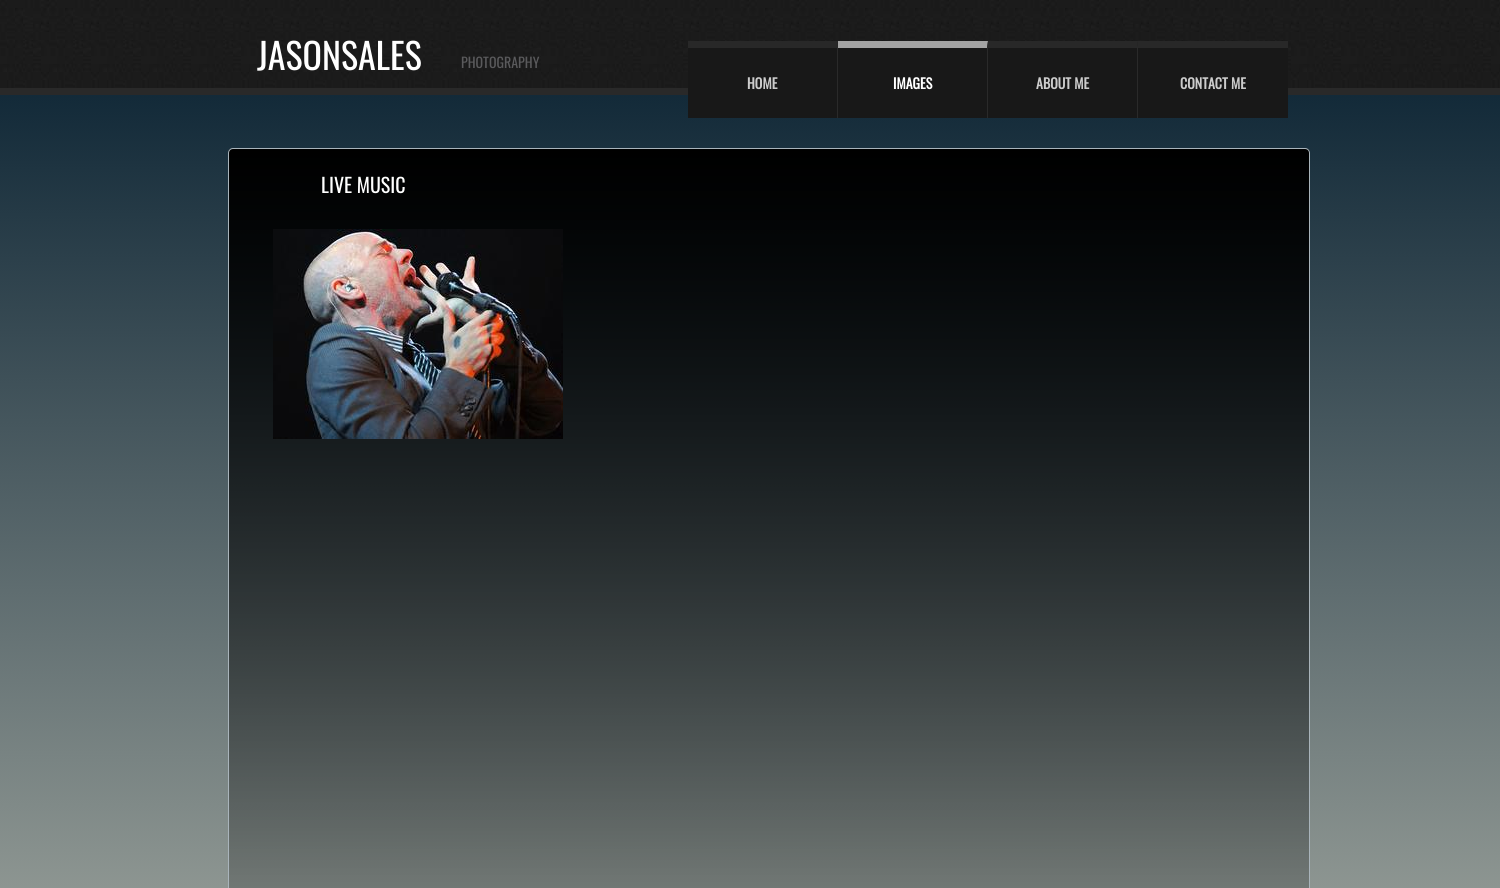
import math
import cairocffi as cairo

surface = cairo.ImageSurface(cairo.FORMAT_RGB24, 1500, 888)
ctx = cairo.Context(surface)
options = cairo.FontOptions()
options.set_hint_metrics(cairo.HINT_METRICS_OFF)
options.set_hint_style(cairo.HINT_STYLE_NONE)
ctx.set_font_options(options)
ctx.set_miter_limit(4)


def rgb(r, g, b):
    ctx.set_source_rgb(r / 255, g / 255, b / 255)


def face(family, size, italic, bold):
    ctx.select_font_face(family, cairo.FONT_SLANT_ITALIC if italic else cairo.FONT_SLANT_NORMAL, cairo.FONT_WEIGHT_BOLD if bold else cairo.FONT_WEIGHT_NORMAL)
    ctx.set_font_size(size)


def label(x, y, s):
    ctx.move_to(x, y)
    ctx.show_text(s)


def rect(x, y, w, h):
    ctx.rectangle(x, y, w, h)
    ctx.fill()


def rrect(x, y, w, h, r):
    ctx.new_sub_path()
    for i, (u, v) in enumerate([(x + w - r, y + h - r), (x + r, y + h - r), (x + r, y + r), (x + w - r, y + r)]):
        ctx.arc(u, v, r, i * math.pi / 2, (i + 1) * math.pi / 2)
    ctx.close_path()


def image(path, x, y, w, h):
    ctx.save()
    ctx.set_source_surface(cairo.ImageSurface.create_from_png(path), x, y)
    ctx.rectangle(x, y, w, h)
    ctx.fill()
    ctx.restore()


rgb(255, 255, 255)
ctx.paint()
image('image0.png', 0, 0, 1500, 888)
face('Oswald', 36, 0, 0)
rgb(255, 255, 255)
label(257, 70, 'JASONSALES')
face('Oswald', 14, 0, 0)
rgb(90, 90, 92)
label(461, 68, 'PHOTOGRAPHY')
rgb(24, 24, 24)
rect(688, 41, 450, 77)
rgb(40, 40, 40)
ctx.new_path()
ctx.move_to(688, 41)
ctx.line_to(838, 41)
ctx.line_to(837, 48)
ctx.line_to(688, 48)
ctx.close_path()
ctx.fill()
rgb(42, 42, 42)
ctx.new_path()
ctx.move_to(838, 41)
ctx.line_to(838, 118)
ctx.line_to(837, 118)
ctx.line_to(837, 48)
ctx.close_path()
ctx.fill()
face('Oswald', 14, 0, 1)
rgb(204, 204, 204)
label(747, 89, 'HOME')
rgb(163, 163, 163)
ctx.new_path()
ctx.move_to(838, 41)
ctx.line_to(988, 41)
ctx.line_to(987, 48)
ctx.line_to(838, 48)
ctx.close_path()
ctx.fill()
rgb(42, 42, 42)
ctx.new_path()
ctx.move_to(988, 41)
ctx.line_to(988, 118)
ctx.line_to(987, 118)
ctx.line_to(987, 48)
ctx.close_path()
ctx.fill()
rgb(255, 255, 255)
label(893, 89, 'IMAGES')
rgb(40, 40, 40)
ctx.new_path()
ctx.move_to(988, 41)
ctx.line_to(1138, 41)
ctx.line_to(1137, 48)
ctx.line_to(988, 48)
ctx.close_path()
ctx.fill()
rgb(42, 42, 42)
ctx.new_path()
ctx.move_to(1138, 41)
ctx.line_to(1138, 118)
ctx.line_to(1137, 118)
ctx.line_to(1137, 48)
ctx.close_path()
ctx.fill()
rgb(204, 204, 204)
label(1036, 89, 'ABOUT ME')
rgb(24, 24, 24)
rect(1138, 48, 150, 70)
rgb(40, 40, 40)
rect(1138, 41, 150, 7)
rgb(204, 204, 204)
label(1180, 89, 'CONTACT ME')
rrect(228.5, 148.5, 1081, 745, 4.5)
rgb(169, 180, 187)
ctx.set_line_width(1)
ctx.stroke()
face('Oswald', 20, 0, 0)
rgb(255, 255, 255)
label(321, 193, 'LIVE MUSIC')
image('image1.png', 273, 229, 290, 210)
surface.write_to_png('render.png')
